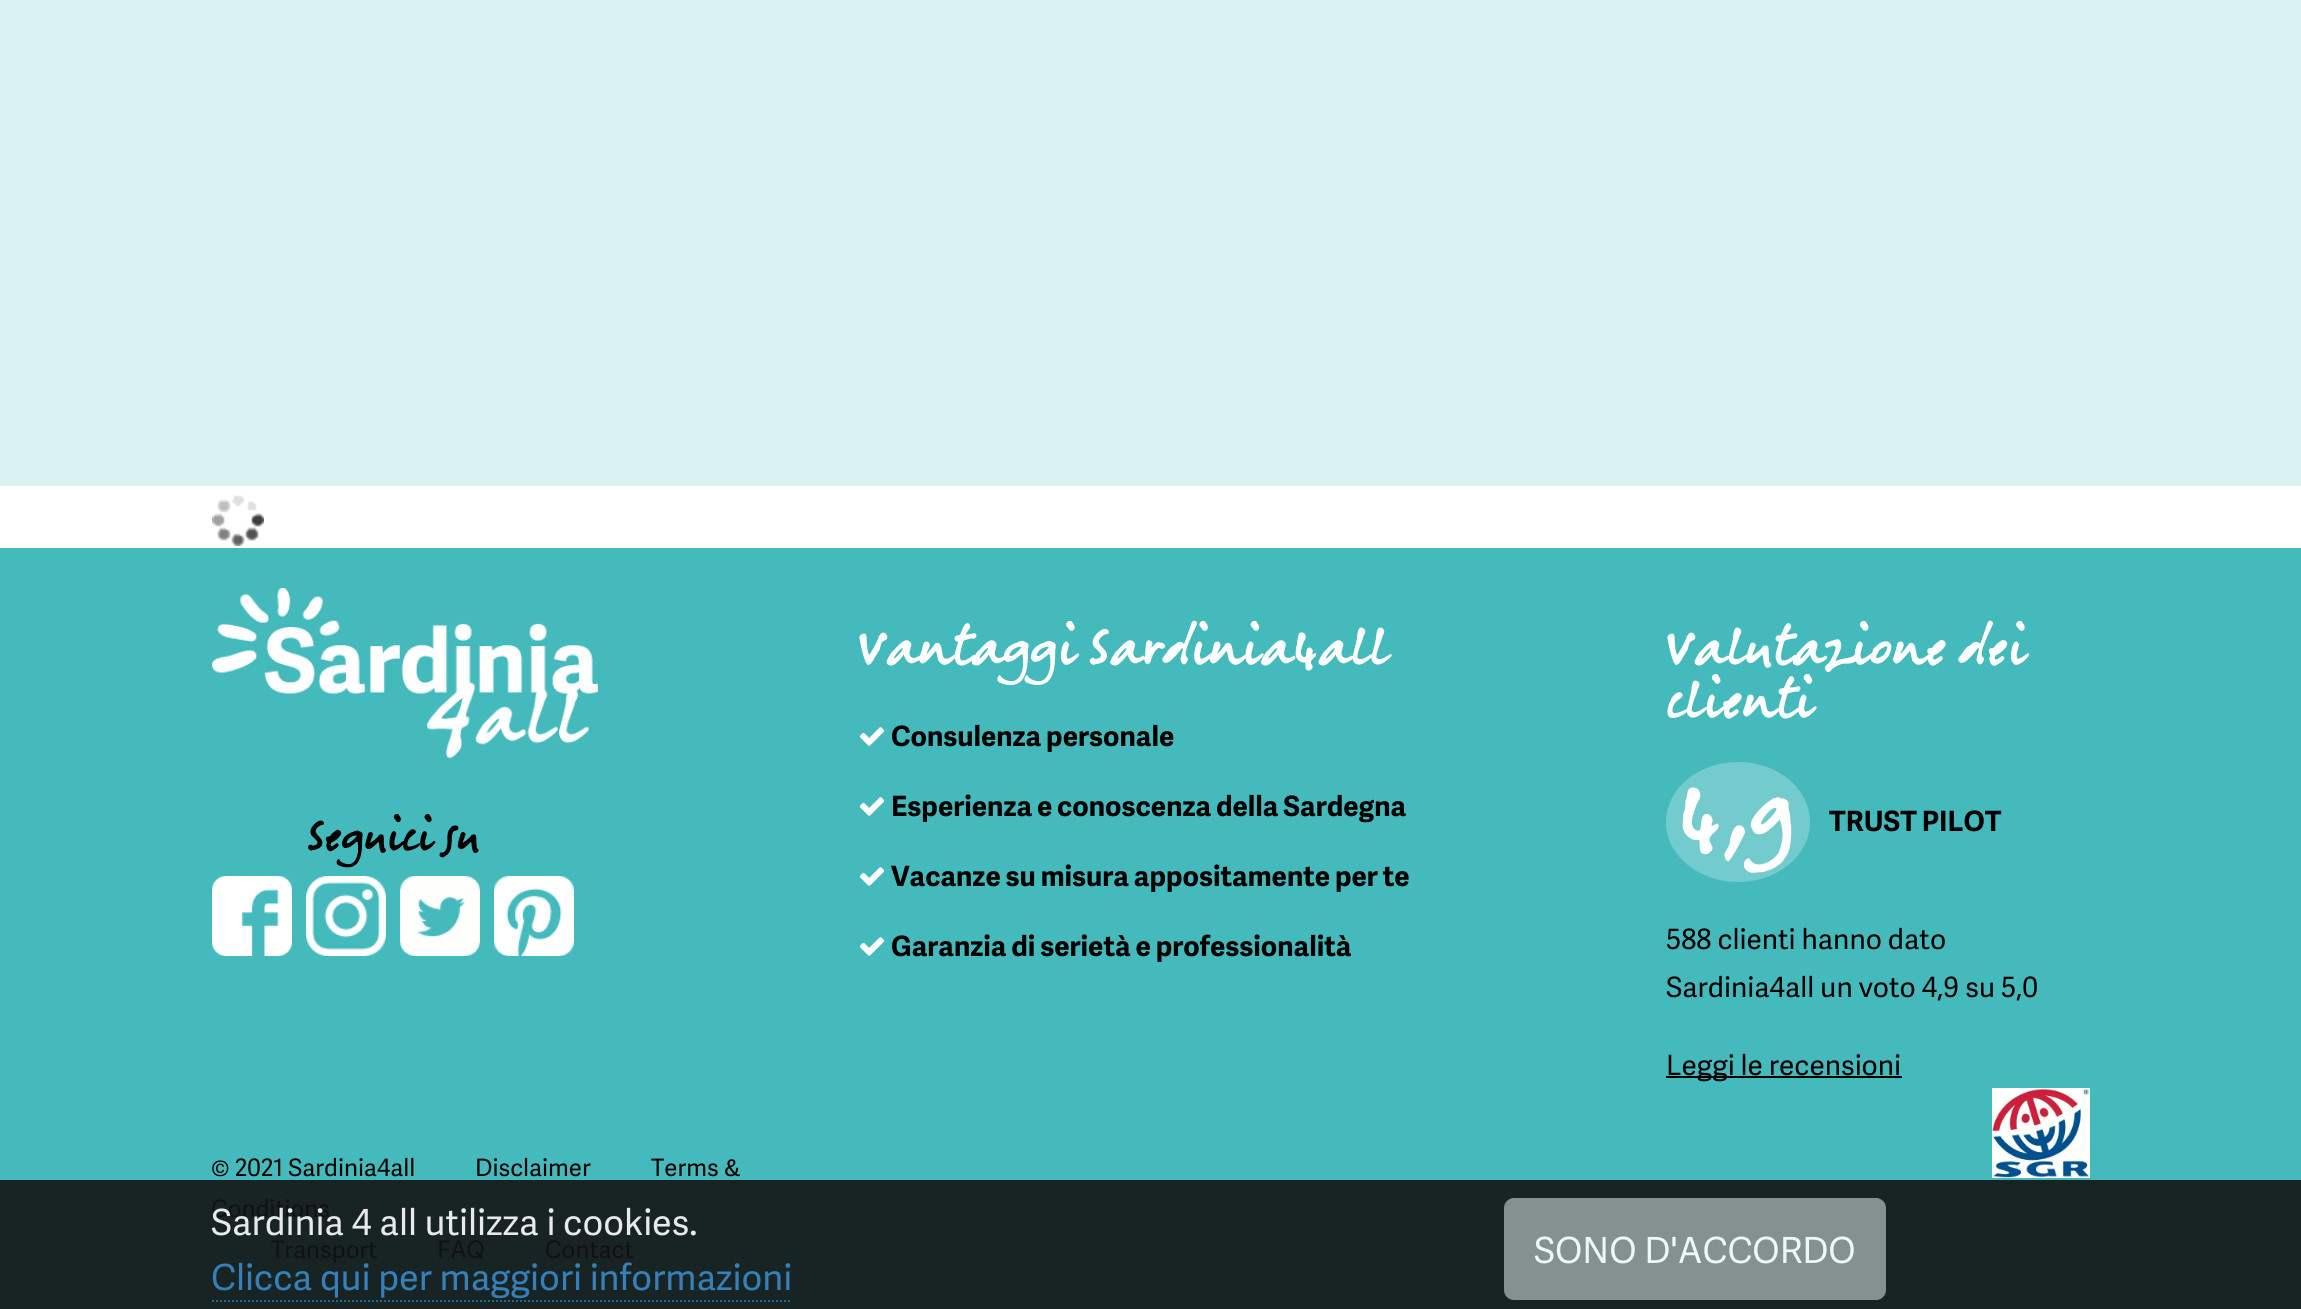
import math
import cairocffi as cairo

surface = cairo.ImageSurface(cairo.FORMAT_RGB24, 2301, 1309)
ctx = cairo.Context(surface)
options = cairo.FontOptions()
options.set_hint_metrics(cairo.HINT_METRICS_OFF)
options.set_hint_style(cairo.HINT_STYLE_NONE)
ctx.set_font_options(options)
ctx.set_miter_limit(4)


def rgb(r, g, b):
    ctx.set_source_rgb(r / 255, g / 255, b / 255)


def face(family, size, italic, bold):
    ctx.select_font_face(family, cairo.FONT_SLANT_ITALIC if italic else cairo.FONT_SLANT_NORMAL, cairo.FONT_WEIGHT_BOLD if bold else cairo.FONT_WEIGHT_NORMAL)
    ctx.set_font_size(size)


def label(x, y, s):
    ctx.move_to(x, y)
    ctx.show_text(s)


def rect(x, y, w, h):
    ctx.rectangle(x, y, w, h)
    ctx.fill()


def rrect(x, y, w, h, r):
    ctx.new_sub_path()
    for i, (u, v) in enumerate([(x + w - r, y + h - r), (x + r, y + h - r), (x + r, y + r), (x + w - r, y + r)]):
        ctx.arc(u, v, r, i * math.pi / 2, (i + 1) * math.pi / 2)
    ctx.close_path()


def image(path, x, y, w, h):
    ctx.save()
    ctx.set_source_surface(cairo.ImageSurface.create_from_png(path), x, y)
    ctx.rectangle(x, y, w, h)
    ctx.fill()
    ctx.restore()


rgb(255, 255, 255)
ctx.paint()
rgb(218, 241, 242)
rect(0, 0, 2301, 486)
image('image0.png', 212, 495, 52, 51)
rgb(69, 186, 189)
rect(0, 548, 2301, 632)
rgb(24, 36, 36)
rect(0, 1180, 2301, 129)
image('image1.png', 212, 588, 386, 170)
face('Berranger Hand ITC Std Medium', 40, 0, 0)
rgb(0, 0, 0)
label(307, 849, 'Seguici su')
image('image2.png', 212, 876, 80, 80)
image('image3.png', 306, 876, 80, 80)
image('image4.png', 400, 876, 80, 80)
image('image5.png', 494, 876, 80, 80)
face('Berranger Hand ITC Std Medium', 48, 0, 0)
rgb(255, 255, 255)
label(858, 663, 'Vantaggi Sardinia4all')
image('image6.png', 859, 727, 26, 19)
face('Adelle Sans', 28, 0, 1)
rgb(0, 0, 0)
label(891, 746, 'Consulenza personale')
image('image6.png', 859, 797, 26, 19)
label(891, 816, 'Esperienza e conoscenza della Sardegna')
image('image6.png', 859, 867, 26, 19)
label(891, 886, 'Vacanze su misura appositamente per te')
image('image6.png', 859, 937, 26, 19)
label(891, 956, 'Garanzia di serietà e professionalità')
face('Berranger Hand ITC Std Medium', 48, 0, 0)
rgb(255, 255, 255)
label(1666, 663, 'Valutazione dei')
label(1666, 716, 'clienti')
rgb(116, 203, 206)
ctx.new_path()
ctx.move_to(1738, 762)
ctx.curve_to(1778, 762, 1810, 789, 1810, 822)
ctx.curve_to(1810, 855, 1778, 882, 1738, 882)
ctx.curve_to(1698, 882, 1666, 855, 1666, 822)
ctx.curve_to(1666, 789, 1698, 762, 1738, 762)
ctx.close_path()
ctx.fill()
face('Berranger Hand ITC Std Medium', 84, 0, 0)
rgb(255, 255, 255)
label(1678, 841, '4,9')
face('Adelle Sans', 28, 0, 1)
rgb(0, 0, 0)
label(1829, 831, 'TRUST PILOT')
face('Adelle Sans', 28, 0, 0)
label(1666, 949, '588 clienti hanno dato')
label(1666, 997, 'Sardinia4all un voto 4,9 su 5,0')
rect(1666, 1076, 236, 2)
label(1666, 1075, 'Leggi le recensioni')
image('image7.png', 1992, 1088, 98, 90)
face('Adelle Sans', 24, 0, 0)
label(211, 1176, '© 2021 Sardinia4all')
label(475, 1176, 'Disclaimer')
label(651, 1176, 'Terms &')
rgb(17, 17, 17)
label(211, 1217, 'Conditions')
label(271, 1258, 'Transport')
label(437, 1258, 'FAQ')
label(545, 1258, 'Contact')
face('Adelle Sans', 36, 0, 0)
rgb(232, 233, 233)
label(211, 1235, 'Sardinia 4 all utilizza i cookies.')
rgb(53, 128, 184)
label(211, 1290, 'Clicca qui per maggiori informazioni')
ctx.new_path()
ctx.move_to(212, 1301)
ctx.line_to(792, 1301)
rgb(35, 104, 144)
ctx.set_dash([2, 2])
ctx.stroke()
rgb(133, 145, 145)
rrect(1504, 1198, 382, 102, 10)
ctx.fill()
rgb(236, 248, 248)
label(1534, 1263, 'SONO D\'ACCORDO')
surface.write_to_png('render.png')
